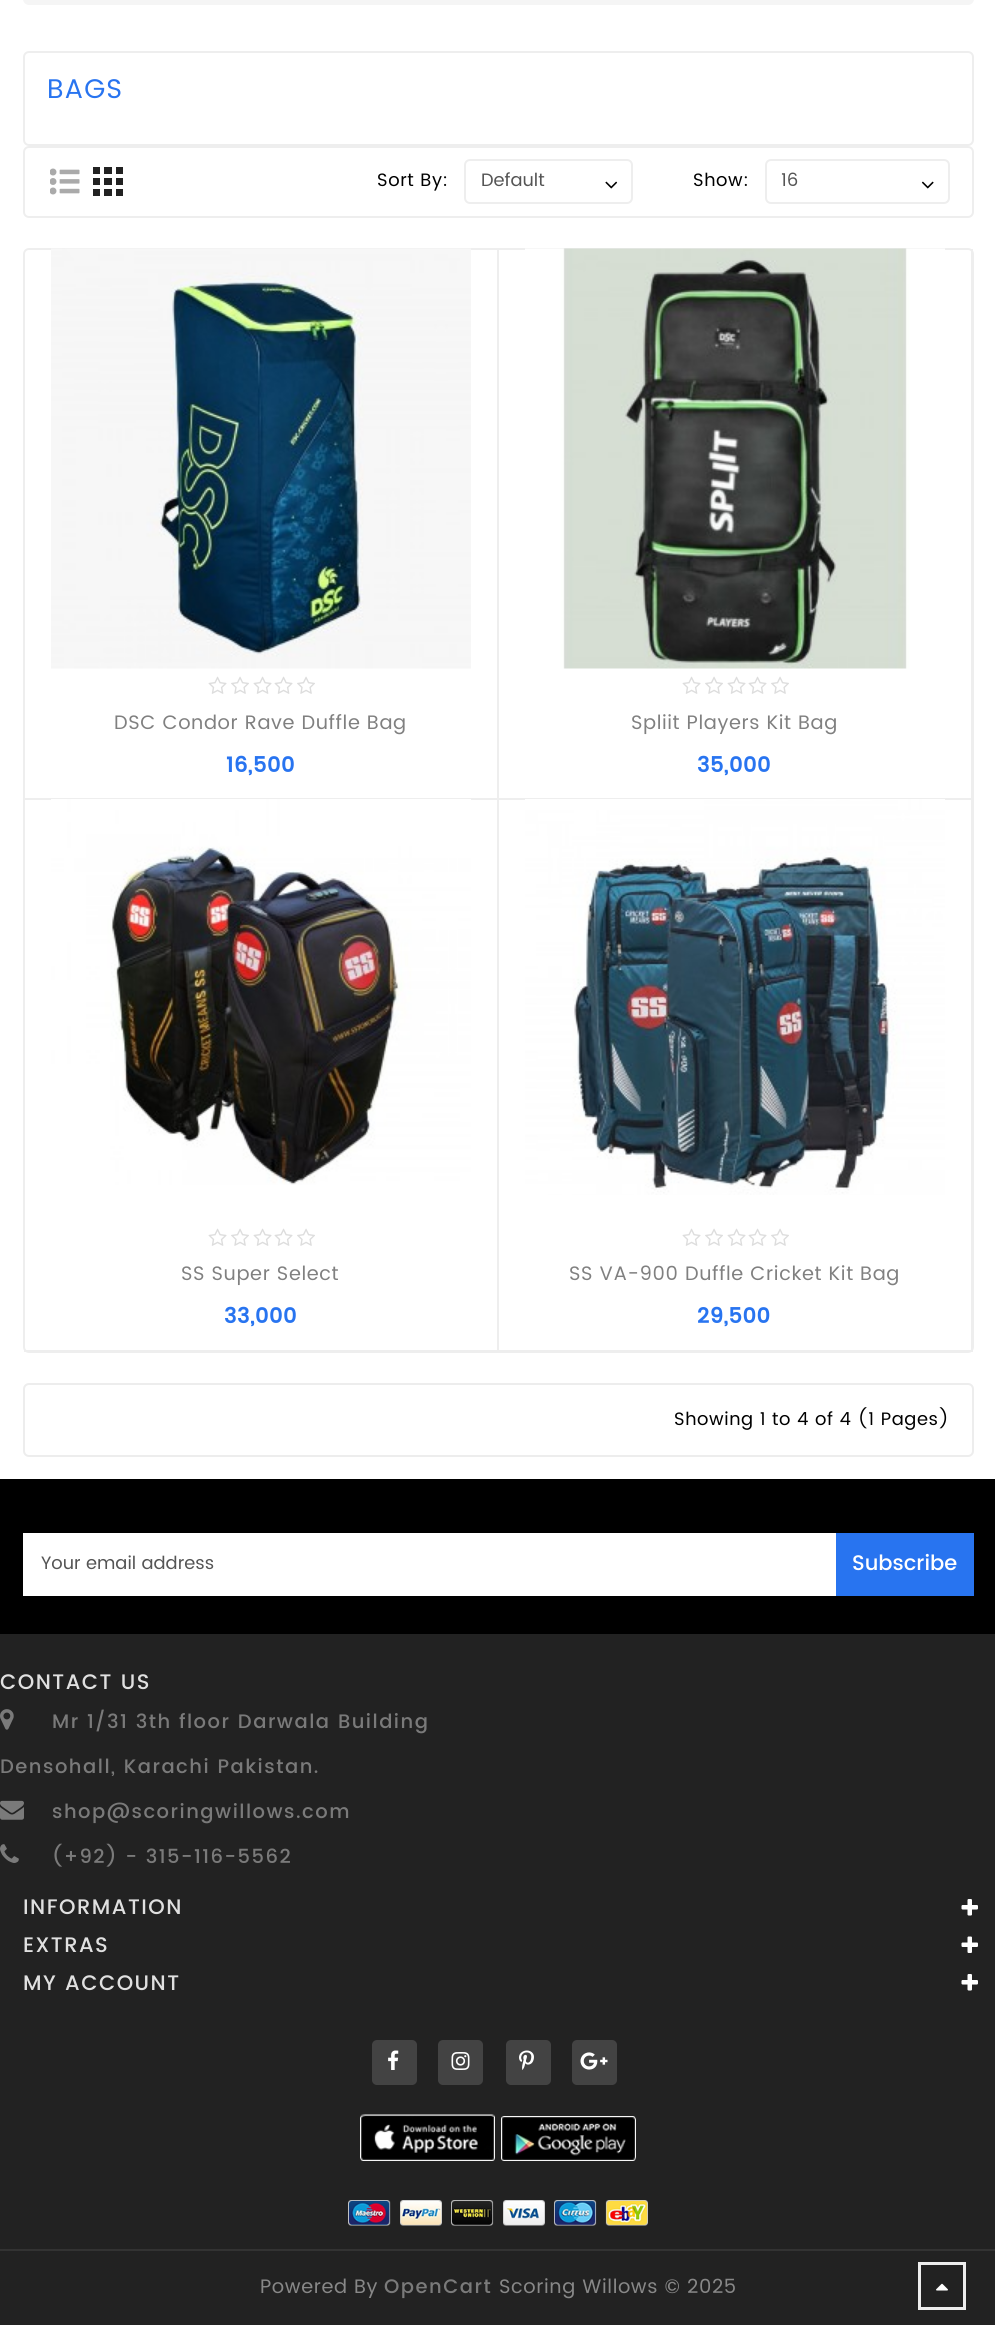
import math
import cairocffi as cairo

surface = cairo.ImageSurface(cairo.FORMAT_RGB24, 995, 2325)
ctx = cairo.Context(surface)
options = cairo.FontOptions()
options.set_hint_metrics(cairo.HINT_METRICS_OFF)
options.set_hint_style(cairo.HINT_STYLE_NONE)
ctx.set_font_options(options)
ctx.set_miter_limit(4)


def rgb(r, g, b):
    ctx.set_source_rgb(r / 255, g / 255, b / 255)


def face(family, size, italic, bold):
    ctx.select_font_face(family, cairo.FONT_SLANT_ITALIC if italic else cairo.FONT_SLANT_NORMAL, cairo.FONT_WEIGHT_BOLD if bold else cairo.FONT_WEIGHT_NORMAL)
    ctx.set_font_size(size)


def label(x, y, s):
    ctx.move_to(x, y)
    ctx.show_text(s)


def tracked(x, y, s, letter, word):
    ctx.move_to(x, y)
    for ch in s:
        ctx.show_text(ch)
        ctx.rel_move_to(letter + word * (ch == ' '), 0)


def rect(x, y, w, h):
    ctx.rectangle(x, y, w, h)
    ctx.fill()


def rrect(x, y, w, h, r):
    ctx.new_sub_path()
    for i, (u, v) in enumerate([(x + w - r, y + h - r), (x + r, y + h - r), (x + r, y + r), (x + w - r, y + r)]):
        ctx.arc(u, v, r, i * math.pi / 2, (i + 1) * math.pi / 2)
    ctx.close_path()


def image(path, x, y, w, h):
    ctx.save()
    ctx.set_source_surface(cairo.ImageSurface.create_from_png(path), x, y)
    ctx.rectangle(x, y, w, h)
    ctx.fill()
    ctx.restore()


rgb(255, 255, 255)
ctx.paint()
rgb(245, 245, 245)
rrect(23, -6, 951, 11, 6)
ctx.fill()
rrect(24, 52, 949, 93, 5)
rgb(238, 238, 238)
ctx.stroke()
face('Poppins', 27, 0, 0)
rgb(40, 116, 240)
tracked(47, 98, 'BAGS', 1, 0)
rrect(24, 147, 949, 70, 5)
rgb(238, 238, 238)
ctx.stroke()
image('image0.png', 50, 168, 30, 27)
image('image1.png', 93, 167, 30, 29)
face('Poppins', 18, 0, 0)
rgb(0, 0, 0)
tracked(377, 186, 'Sort By:', 0.6, 0)
rrect(465, 160, 167, 43, 5)
rgb(238, 238, 238)
ctx.stroke()
rgb(85, 85, 85)
label(481, 186, 'Default')
image('image2.png', 605, 181, 13, 8)
rgb(0, 0, 0)
tracked(693, 186, 'Show:', 0.6, 0)
rrect(766, 160, 183, 43, 5)
rgb(238, 238, 238)
ctx.stroke()
rgb(85, 85, 85)
label(781, 186, '16')
image('image3.png', 921, 181, 13, 8)
rrect(24, 249, 949, 1103, 5)
rgb(238, 238, 238)
ctx.stroke()
rect(497, 249, 2, 1103)
rect(24, 798, 474, 2)
image('image4.png', 51, 248, 420, 421)
image('image5.png', 208, 676, 19, 18)
image('image6.png', 231, 676, 18, 18)
image('image5.png', 253, 676, 19, 18)
image('image5.png', 274, 676, 19, 18)
image('image6.png', 297, 676, 18, 18)
face('Poppins', 19.5, 0, 0)
rgb(128, 128, 128)
tracked(114, 729, 'DSC Condor Rave Duffle Bag', 0.6, 0)
face('Poppins', 21, 0, 1)
rgb(40, 116, 240)
tracked(226, 772, '16,500', 0.6, 0)
rgb(238, 238, 238)
rect(971, 249, 2, 1103)
rect(498, 798, 474, 2)
image('image7.png', 525, 248, 420, 421)
image('image5.png', 682, 676, 19, 18)
image('image6.png', 705, 676, 18, 18)
image('image5.png', 727, 676, 19, 18)
image('image5.png', 748, 676, 19, 18)
image('image6.png', 771, 676, 18, 18)
face('Poppins', 19.5, 0, 0)
rgb(128, 128, 128)
tracked(631, 729, 'Spliit Players Kit Bag', 0.6, 0)
face('Poppins', 21, 0, 1)
rgb(40, 116, 240)
tracked(697, 772, '35,000', 0.6, 0)
rgb(238, 238, 238)
rect(24, 1350, 474, 2)
image('image8.png', 51, 799, 420, 386)
image('image5.png', 208, 1228, 19, 18)
image('image6.png', 231, 1228, 18, 18)
image('image5.png', 253, 1228, 19, 18)
image('image5.png', 274, 1228, 19, 18)
image('image6.png', 297, 1228, 18, 18)
face('Poppins', 19.5, 0, 0)
rgb(128, 128, 128)
tracked(181, 1280, 'SS Super Select', 0.6, 0)
face('Poppins', 21, 0, 1)
rgb(40, 116, 240)
tracked(224, 1323, '33,000', 0.6, 0)
rgb(238, 238, 238)
rect(498, 1350, 474, 1)
image('image9.png', 525, 799, 420, 396)
image('image5.png', 682, 1228, 19, 18)
image('image6.png', 705, 1228, 18, 18)
image('image5.png', 727, 1228, 19, 18)
image('image5.png', 748, 1228, 19, 18)
image('image6.png', 771, 1228, 18, 18)
face('Poppins', 19.5, 0, 0)
rgb(128, 128, 128)
tracked(569, 1280, 'SS VA-900 Duffle Cricket Kit Bag', 0.6, 0)
face('Poppins', 21, 0, 1)
rgb(40, 116, 240)
tracked(697, 1323, '29,500', 0.6, 0)
rrect(24, 1384, 949, 72, 5)
rgb(237, 237, 237)
ctx.stroke()
face('Poppins', 18, 0, 0)
rgb(0, 0, 0)
tracked(674, 1425, 'Showing 1 to 4 of 4 (1 Pages)', 0.6, 0)
rgb(34, 34, 34)
rect(0, 1634, 995, 691)
rgb(0, 0, 0)
rect(0, 1479, 995, 155)
rgb(255, 255, 255)
rect(23, 1533, 813, 63)
rgb(85, 85, 85)
label(41, 1569, 'Your email address')
rgb(40, 116, 240)
rect(836, 1533, 138, 63)
face('Poppins Medium', 21, 0, 0)
rgb(255, 255, 255)
label(852, 1570, 'Subscribe')
rgb(224, 224, 224)
tracked(0, 1689, 'CONTACT US', 1.5, 0)
image('image10.png', 0, 1709, 14, 21)
face('Poppins Medium', 19.5, 0, 0)
rgb(122, 122, 122)
tracked(52, 1728, 'Mr 1/31 3th floor Darwala Building', 1.5, 0)
tracked(0, 1773, 'Densohall, Karachi Pakistan.', 1.5, 0)
image('image11.png', 0, 1800, 24, 20)
tracked(52, 1818, 'shop@scoringwillows.com', 1.5, 0)
image('image12.png', 0, 1844, 19, 19)
tracked(52, 1863, '(+92) - 315-116-5562', 1.5, 0)
face('Poppins Medium', 21, 0, 0)
rgb(224, 224, 224)
tracked(23, 1914, 'INFORMATION', 1.5, 0)
image('image13.png', 961, 1899, 17, 17)
tracked(23, 1952, 'EXTRAS', 1.5, 0)
image('image14.png', 961, 1936, 17, 17)
tracked(23, 1990, 'MY ACCOUNT', 1.5, 0)
image('image13.png', 961, 1974, 17, 17)
rgb(67, 67, 67)
rrect(372, 2040, 45, 45, 5)
ctx.fill()
image('image15.png', 388, 2050, 11, 20)
rrect(438, 2040, 45, 45, 5)
ctx.fill()
image('image16.png', 451, 2052, 19, 18)
rrect(506, 2040, 45, 45, 5)
ctx.fill()
image('image17.png', 519, 2050, 15, 20)
rrect(572, 2040, 45, 45, 5)
ctx.fill()
image('image18.png', 580, 2052, 28, 18)
image('image19.png', 360, 2114, 135, 47)
image('image20.png', 501, 2116, 135, 45)
image('image21.png', 348, 2200, 300, 26)
rgb(51, 51, 51)
rect(0, 2249, 995, 2)
face('Poppins', 19.5, 0, 0)
rgb(136, 136, 136)
tracked(260, 2293, 'Powered By', 0.6, 0)
face('Poppins Medium', 19.5, 0, 0)
rgb(122, 122, 122)
tracked(384, 2293, 'OpenCart', 1.5, 0)
face('Poppins', 19.5, 0, 0)
rgb(136, 136, 136)
tracked(499, 2293, 'Scoring Willows © 2025', 0.6, 0)
ctx.rectangle(919.5, 2263.5, 45, 45)
rgb(237, 237, 237)
ctx.set_line_width(3)
ctx.stroke()
image('image22.png', 936, 2283, 12, 8)
surface.write_to_png('render.png')
